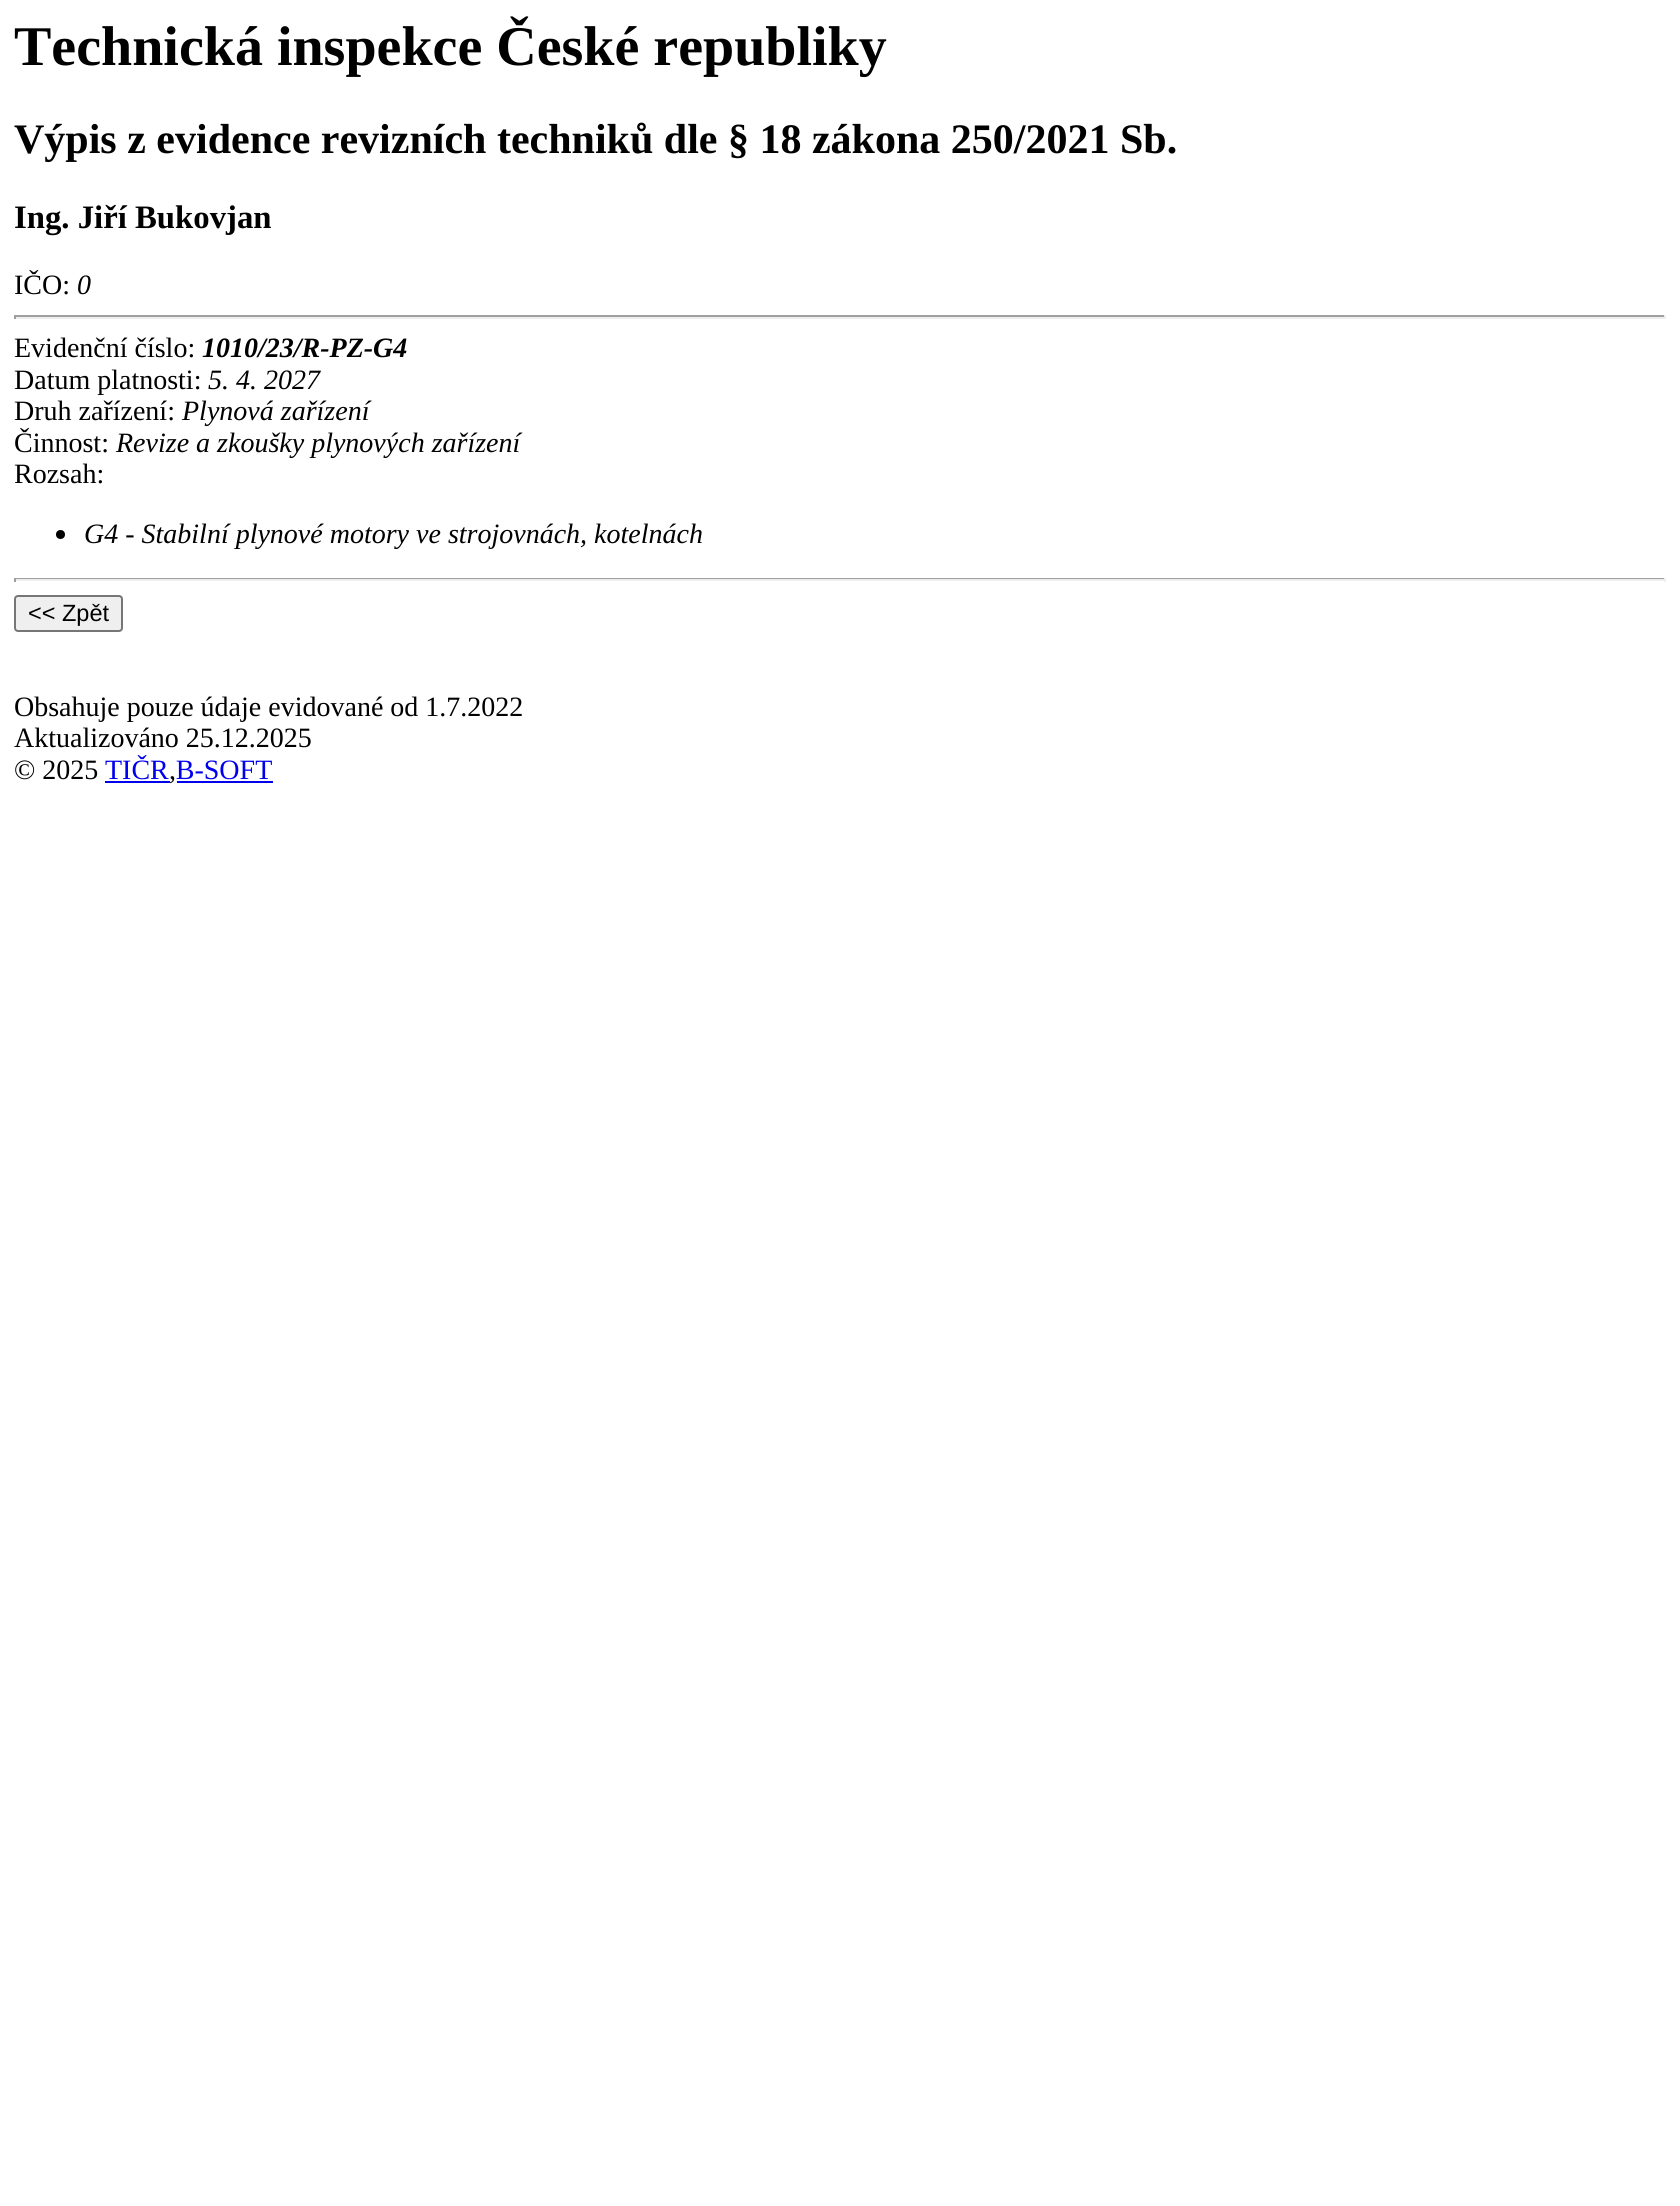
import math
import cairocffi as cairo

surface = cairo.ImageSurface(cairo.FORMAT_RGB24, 1680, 2206)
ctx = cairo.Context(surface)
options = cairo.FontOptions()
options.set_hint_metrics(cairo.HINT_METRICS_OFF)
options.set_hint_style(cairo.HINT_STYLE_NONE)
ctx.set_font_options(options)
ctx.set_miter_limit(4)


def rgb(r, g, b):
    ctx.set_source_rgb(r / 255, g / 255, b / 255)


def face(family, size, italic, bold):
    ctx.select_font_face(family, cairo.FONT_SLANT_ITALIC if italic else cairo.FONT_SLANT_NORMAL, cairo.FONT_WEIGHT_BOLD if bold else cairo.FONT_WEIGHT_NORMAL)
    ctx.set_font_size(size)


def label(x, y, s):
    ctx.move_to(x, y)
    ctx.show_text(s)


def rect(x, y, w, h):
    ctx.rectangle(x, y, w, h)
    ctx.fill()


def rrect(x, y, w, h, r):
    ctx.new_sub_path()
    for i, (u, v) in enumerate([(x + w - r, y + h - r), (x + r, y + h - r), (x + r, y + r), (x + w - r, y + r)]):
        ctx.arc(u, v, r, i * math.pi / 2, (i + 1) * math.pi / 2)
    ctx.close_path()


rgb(255, 255, 255)
ctx.paint()
face('Liberation Serif', 56, 0, 1)
rgb(0, 0, 0)
label(14, 65, 'Technická inspekce České republiky')
face('Liberation Serif', 42, 0, 1)
label(14, 153, 'Výpis z evidence revizních techniků dle § 18 zákona 250/2021 Sb.')
face('Liberation Serif', 32.75, 0, 1)
label(14, 228, 'Ing. Jiří Bukovjan')
face('Liberation Serif', 28, 0, 0)
label(14, 294, 'IČO:')
face('Liberation Serif', 28, 1, 0)
label(77, 294, '0')
rgb(159, 159, 159)
rect(14, 315, 1652, 2)
rgb(238, 238, 238)
rect(1664, 315, 2, 4)
rect(14, 317, 1652, 2)
rgb(159, 159, 159)
rect(14, 315, 2, 4)
face('Liberation Serif', 28, 0, 0)
rgb(0, 0, 0)
label(14, 357, 'Evidenční číslo:')
face('Liberation Serif', 28, 1, 1)
label(202, 357, '1010/23/R-PZ-G4')
face('Liberation Serif', 28, 0, 0)
label(14, 389, 'Datum platnosti:')
face('Liberation Serif', 28, 1, 0)
label(208, 389, '5. 4. 2027')
face('Liberation Serif', 28, 0, 0)
label(14, 420, 'Druh zařízení:')
face('Liberation Serif', 28, 1, 0)
label(182, 420, 'Plynová zařízení')
face('Liberation Serif', 28, 0, 0)
label(14, 452, 'Činnost:')
face('Liberation Serif', 28, 1, 0)
label(116, 452, 'Revize a zkoušky plynových zařízení')
face('Liberation Serif', 28, 0, 0)
label(14, 483, 'Rozsah:')
ctx.new_path()
ctx.arc(60.5, 534.5, 4.5, 0, 2 * math.pi)
ctx.fill()
face('Liberation Serif', 28, 1, 0)
label(84, 543, 'G4 - Stabilní plynové motory ve strojovnách, kotelnách')
rgb(159, 159, 159)
rect(14, 578, 1652, 1)
rgb(238, 238, 238)
rect(1664, 578, 2, 4)
rect(14, 579, 1652, 2)
rgb(159, 159, 159)
rect(14, 578, 2, 4)
rgb(239, 239, 239)
rrect(15, 596, 107, 35, 3)
ctx.fill_preserve()
rgb(118, 118, 118)
ctx.stroke()
face('Liberation Sans', 23.5, 0, 0)
rgb(0, 0, 0)
label(28, 621, '<< Zpět')
face('Liberation Serif', 28, 0, 0)
label(14, 716, 'Obsahuje pouze údaje evidované od 1.7.2022')
label(14, 747, 'Aktualizováno 25.12.2025')
label(14, 779, '© 2025')
rgb(0, 0, 238)
label(105, 779, 'TIČR B-SOFT')
rect(105, 781, 65, 2)
rgb(0, 0, 0)
label(169, 779, ',')
rgb(0, 0, 238)
rect(177, 781, 96, 2)
surface.write_to_png('render.png')
